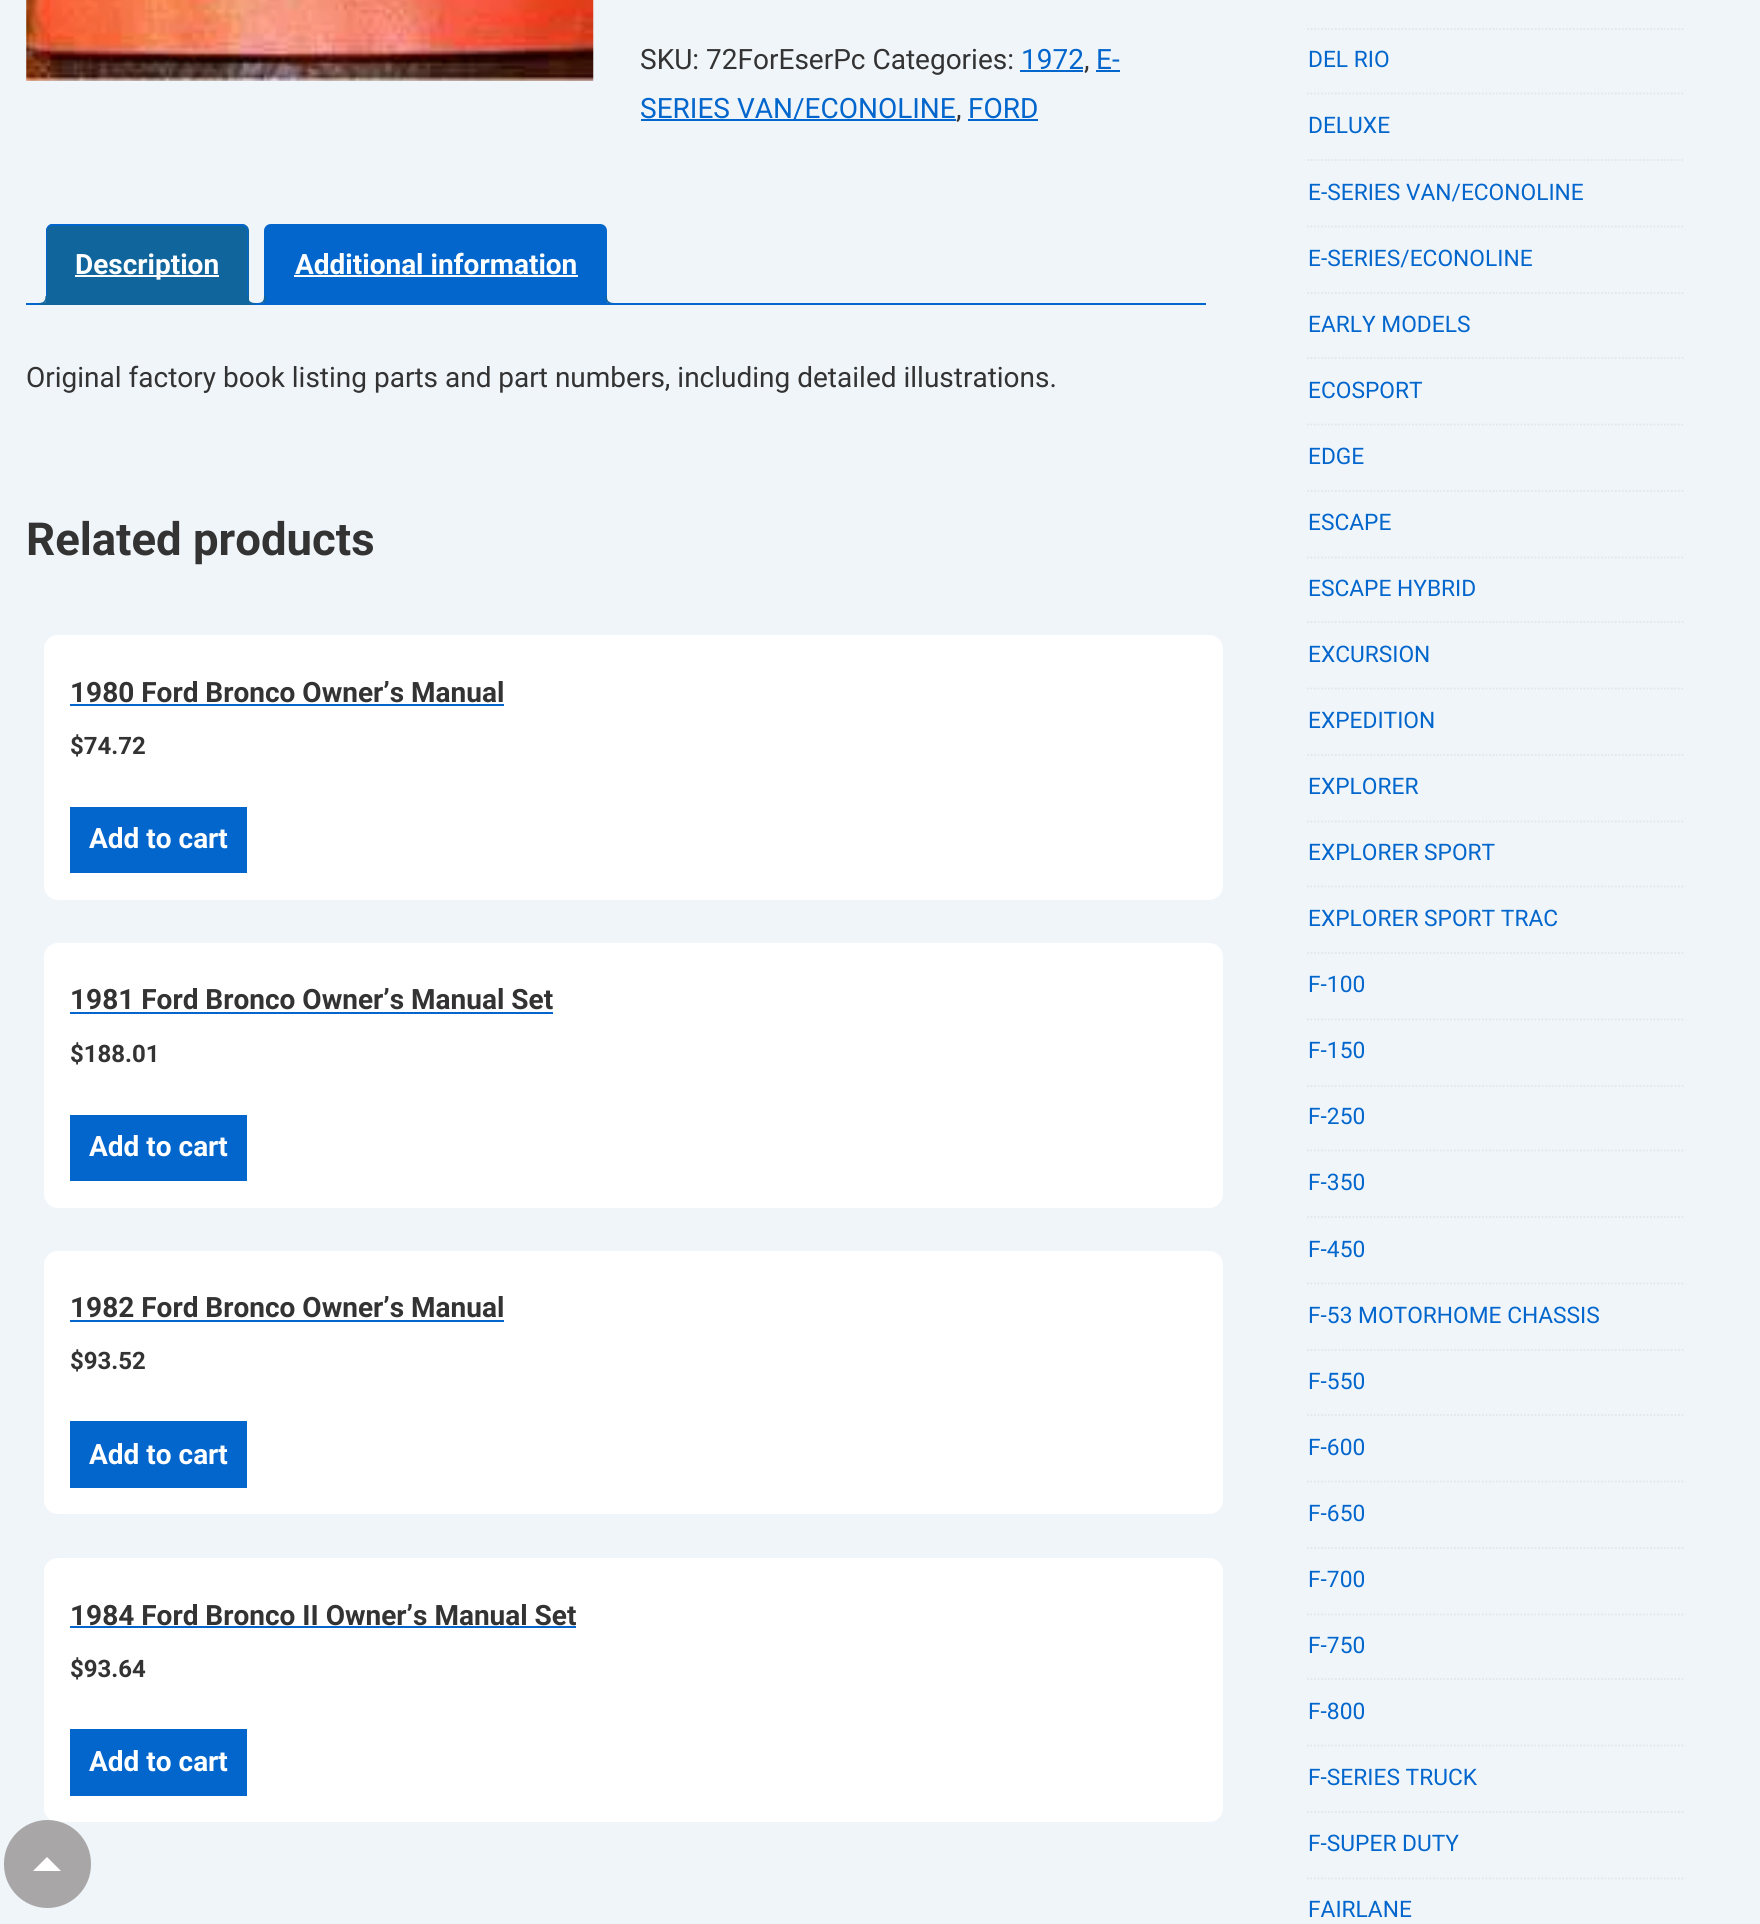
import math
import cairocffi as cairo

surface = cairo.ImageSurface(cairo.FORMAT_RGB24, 1760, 1924)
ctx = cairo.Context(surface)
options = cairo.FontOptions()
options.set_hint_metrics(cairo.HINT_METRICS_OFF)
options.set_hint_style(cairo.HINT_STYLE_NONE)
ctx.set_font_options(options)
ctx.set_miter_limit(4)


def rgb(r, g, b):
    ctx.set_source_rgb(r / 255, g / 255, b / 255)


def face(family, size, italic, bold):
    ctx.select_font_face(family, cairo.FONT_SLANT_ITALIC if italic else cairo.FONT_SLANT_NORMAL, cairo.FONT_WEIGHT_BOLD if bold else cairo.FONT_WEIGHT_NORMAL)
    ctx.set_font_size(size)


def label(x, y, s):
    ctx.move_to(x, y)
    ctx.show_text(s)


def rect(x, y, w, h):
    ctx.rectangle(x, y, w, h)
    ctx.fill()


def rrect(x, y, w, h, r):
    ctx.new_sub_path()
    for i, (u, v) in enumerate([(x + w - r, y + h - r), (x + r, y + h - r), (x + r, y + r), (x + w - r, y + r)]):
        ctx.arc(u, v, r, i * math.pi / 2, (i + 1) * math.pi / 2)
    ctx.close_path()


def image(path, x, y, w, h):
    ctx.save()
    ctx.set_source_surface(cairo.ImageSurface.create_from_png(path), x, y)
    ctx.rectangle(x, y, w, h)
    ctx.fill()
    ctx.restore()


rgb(240, 245, 250)
ctx.paint()
image('image0.png', 26, 0, 568, 81)
face('Roboto', 28, 0, 0)
rgb(51, 51, 51)
label(640, 69, 'SKU: 72ForEserPc Categories:')
rgb(2, 102, 204)
label(1021, 69, '1972')
rgb(51, 51, 51)
label(1084, 69, ',')
rgb(2, 102, 204)
rect(1020, 70, 63, 2)
rect(1096, 70, 24, 2)
label(1096, 69, 'E-')
rect(641, 119, 315, 2)
label(640, 118, 'SERIES VAN/ECONOLINE')
rgb(51, 51, 51)
label(956, 118, ',')
rgb(2, 102, 204)
rect(968, 119, 70, 2)
label(968, 118, 'FORD')
ctx.new_path()
ctx.move_to(271, 225)
ctx.line_to(600, 225)
ctx.curve_to(603.5, 225, 606, 227.5, 606, 231)
ctx.line_to(606, 304)
ctx.line_to(265, 304)
ctx.line_to(265, 231)
ctx.curve_to(265, 227.5, 267.5, 225, 271, 225)
ctx.close_path()
ctx.fill_preserve()
ctx.stroke()
ctx.save()
ctx.rectangle(26, 224, 1180, 81)
ctx.clip()
ctx.new_path()
ctx.move_to(261, 304)
ctx.line_to(261, 308)
ctx.curve_to(267.5, 308, 270, 305.5, 270, 299)
ctx.line_to(266, 299)
ctx.curve_to(265.5, 301.5, 263.5, 303.5, 261, 304)
ctx.close_path()
ctx.fill()
ctx.restore()
rgb(16, 101, 156)
ctx.set_fill_rule(cairo.FILL_RULE_EVEN_ODD)
ctx.new_path()
ctx.move_to(257, 296)
ctx.line_to(266, 296)
ctx.curve_to(266, 302, 263.5, 304.5, 257, 304.5)
ctx.close_path()
ctx.move_to(257, 296)
ctx.line_to(264, 296)
ctx.curve_to(264, 301, 262.5, 303, 257, 303)
ctx.close_path()
ctx.fill()
ctx.save()
ctx.set_fill_rule(cairo.FILL_RULE_WINDING)
ctx.rectangle(26, 224, 1180, 81)
ctx.clip()
rgb(2, 102, 204)
ctx.new_path()
ctx.move_to(602, 299)
ctx.curve_to(602, 305.5, 604.5, 308, 611, 308)
ctx.line_to(611, 304.5)
ctx.curve_to(608.5, 304, 606, 301.5, 605.5, 299)
ctx.close_path()
ctx.fill()
ctx.restore()
ctx.new_path()
ctx.move_to(605.5, 296)
ctx.line_to(614, 296)
ctx.line_to(614, 304.5)
ctx.curve_to(610, 304.5, 605.5, 303, 605.5, 297.5)
ctx.close_path()
ctx.move_to(607, 296)
ctx.line_to(614, 296)
ctx.line_to(614, 303)
ctx.curve_to(611, 303, 607, 302, 607, 297.5)
ctx.close_path()
ctx.fill()
rgb(2, 102, 204)
rect(26, 303, 1180, 2)
rgb(16, 101, 156)
ctx.new_path()
ctx.move_to(53, 224)
ctx.line_to(242, 224)
ctx.curve_to(246, 224, 249, 227, 249, 231)
ctx.line_to(249, 305)
ctx.line_to(46, 305)
ctx.line_to(46, 231)
ctx.curve_to(46, 227, 49, 224, 53, 224)
ctx.close_path()
ctx.fill()
rgb(2, 102, 204)
ctx.set_fill_rule(cairo.FILL_RULE_WINDING)
ctx.new_path()
ctx.move_to(52, 224)
ctx.curve_to(50, 224, 49, 225, 48, 226)
ctx.line_to(49, 227)
ctx.line_to(52, 226)
ctx.line_to(242, 226)
ctx.line_to(245, 227)
ctx.line_to(246, 226)
ctx.curve_to(245, 225, 244, 224, 242, 224)
ctx.close_path()
ctx.fill()
ctx.new_path()
ctx.move_to(246, 226)
ctx.curve_to(247, 227, 248, 229, 248, 231)
ctx.line_to(248, 304)
ctx.line_to(247, 303)
ctx.line_to(247, 230)
ctx.line_to(245, 227)
ctx.close_path()
ctx.fill()
rgb(16, 101, 156)
ctx.new_path()
ctx.move_to(248, 304)
ctx.line_to(247, 303)
ctx.line_to(47, 303)
ctx.line_to(46, 304)
ctx.close_path()
ctx.fill()
rgb(2, 102, 204)
ctx.new_path()
ctx.move_to(48, 226)
ctx.curve_to(47, 227, 46, 229, 46, 231)
ctx.line_to(46, 304)
ctx.line_to(47, 303)
ctx.line_to(47, 230)
ctx.line_to(49, 227)
ctx.close_path()
ctx.fill()
rgb(255, 255, 255)
rect(75, 275, 144, 2)
face('Roboto', 28, 0, 1)
label(75, 274, 'Description')
ctx.save()
ctx.rectangle(26, 224, 1180, 81)
ctx.clip()
rgb(16, 101, 156)
ctx.new_path()
ctx.move_to(42, 304.5)
ctx.line_to(42, 308)
ctx.curve_to(48.5, 308, 51, 305.5, 51, 299)
ctx.line_to(47, 299)
ctx.curve_to(46.5, 301.5, 44.5, 303.5, 42, 304.5)
ctx.close_path()
ctx.fill()
ctx.restore()
rgb(16, 101, 156)
ctx.set_fill_rule(cairo.FILL_RULE_EVEN_ODD)
ctx.new_path()
ctx.move_to(38.5, 296)
ctx.line_to(47, 296)
ctx.curve_to(47, 302, 44.5, 304.5, 38.5, 304.5)
ctx.close_path()
ctx.move_to(38.5, 296)
ctx.line_to(45.5, 296)
ctx.curve_to(45.5, 301, 43.5, 303, 38.5, 303)
ctx.close_path()
ctx.fill()
ctx.save()
ctx.set_fill_rule(cairo.FILL_RULE_WINDING)
ctx.rectangle(26, 224, 1180, 81)
ctx.clip()
ctx.new_path()
ctx.move_to(243, 299)
ctx.curve_to(243, 305.5, 245.5, 308, 252, 308)
ctx.line_to(252, 304.5)
ctx.curve_to(249.5, 303.5, 247.5, 301.5, 247, 299)
ctx.close_path()
ctx.fill()
ctx.restore()
ctx.new_path()
ctx.move_to(247, 296)
ctx.line_to(255.5, 296)
ctx.line_to(255.5, 304.5)
ctx.curve_to(251, 304.5, 247, 303, 247, 297.5)
ctx.close_path()
ctx.move_to(248.5, 296)
ctx.line_to(255.5, 296)
ctx.line_to(255.5, 303)
ctx.curve_to(252, 303, 248.5, 302, 248.5, 297.5)
ctx.close_path()
ctx.fill()
rgb(255, 255, 255)
label(295, 274, 'Additional information')
rect(294, 275, 284, 2)
face('Roboto', 28, 0, 0)
rgb(51, 51, 51)
label(26, 387, 'Original factory book listing parts and part numbers, including detailed illustrations.')
face('Roboto', 45.5, 0, 1)
label(26, 555, 'Related products')
rgb(255, 255, 255)
rrect(44, 635, 1179, 265, 14)
ctx.fill()
face('Roboto', 28, 0, 1)
rgb(51, 51, 51)
label(70, 702, '1980 Ford Bronco Owner’s Manual')
rgb(2, 102, 204)
rect(70, 704, 434, 2)
face('Roboto', 24, 0, 1)
rgb(51, 51, 51)
label(70, 754, '$74.72')
rgb(2, 102, 204)
rect(70, 807, 177, 66)
face('Roboto', 28, 0, 1)
rgb(255, 255, 255)
label(89, 848, 'Add to cart')
rrect(44, 943, 1179, 265, 14)
ctx.fill()
rgb(51, 51, 51)
label(70, 1009, '1981 Ford Bronco Owner’s Manual Set')
rgb(2, 102, 204)
rect(70, 1012, 483, 2)
face('Roboto', 24, 0, 1)
rgb(51, 51, 51)
label(70, 1062, '$188.01')
rgb(2, 102, 204)
rect(70, 1115, 177, 66)
face('Roboto', 28, 0, 1)
rgb(255, 255, 255)
label(89, 1156, 'Add to cart')
rrect(44, 1251, 1179, 263, 14)
ctx.fill()
rgb(51, 51, 51)
label(70, 1317, '1982 Ford Bronco Owner’s Manual')
rgb(2, 102, 204)
rect(70, 1320, 434, 2)
face('Roboto', 24, 0, 1)
rgb(51, 51, 51)
label(70, 1369, '$93.52')
rgb(2, 102, 204)
rect(70, 1421, 177, 67)
face('Roboto', 28, 0, 1)
rgb(255, 255, 255)
label(89, 1464, 'Add to cart')
rrect(44, 1558, 1179, 264, 14)
ctx.fill()
rgb(51, 51, 51)
label(70, 1625, '1984 Ford Bronco II Owner’s Manual Set')
rgb(2, 102, 204)
rect(70, 1626, 506, 2)
face('Roboto', 24, 0, 1)
rgb(51, 51, 51)
label(70, 1677, '$93.64')
rgb(2, 102, 204)
rect(70, 1729, 177, 67)
face('Roboto', 28, 0, 1)
rgb(255, 255, 255)
label(89, 1771, 'Add to cart')
ctx.new_path()
ctx.move_to(1307, 29)
ctx.line_to(1685, 29)
rgb(226, 230, 234)
ctx.set_line_width(1.8)
ctx.set_dash([1.75, 1.75])
ctx.stroke()
face('Roboto', 22.75, 0, 0)
rgb(2, 102, 204)
label(1308, 67, 'DEL RIO')
ctx.new_path()
ctx.move_to(1307, 93.5)
ctx.line_to(1685, 93.5)
rgb(226, 230, 234)
ctx.stroke()
rgb(2, 102, 204)
label(1308, 133, 'DELUXE')
ctx.new_path()
ctx.move_to(1307, 160)
ctx.line_to(1685, 160)
rgb(226, 230, 234)
ctx.stroke()
rgb(2, 102, 204)
label(1308, 200, 'E-SERIES VAN/ECONOLINE')
ctx.new_path()
ctx.move_to(1307, 226.5)
ctx.line_to(1685, 226.5)
rgb(226, 230, 234)
ctx.stroke()
rgb(2, 102, 204)
label(1308, 266, 'E-SERIES/ECONOLINE')
ctx.new_path()
ctx.move_to(1307, 293)
ctx.line_to(1685, 293)
rgb(226, 230, 234)
ctx.stroke()
rgb(2, 102, 204)
label(1308, 332, 'EARLY MODELS')
ctx.new_path()
ctx.move_to(1307, 358)
ctx.line_to(1685, 358)
rgb(226, 230, 234)
ctx.stroke()
rgb(2, 102, 204)
label(1308, 398, 'ECOSPORT')
ctx.new_path()
ctx.move_to(1307, 424.5)
ctx.line_to(1685, 424.5)
rgb(226, 230, 234)
ctx.stroke()
rgb(2, 102, 204)
label(1308, 464, 'EDGE')
ctx.new_path()
ctx.move_to(1307, 491)
ctx.line_to(1685, 491)
rgb(226, 230, 234)
ctx.stroke()
rgb(2, 102, 204)
label(1308, 530, 'ESCAPE')
ctx.new_path()
ctx.move_to(1307, 557.5)
ctx.line_to(1685, 557.5)
rgb(226, 230, 234)
ctx.stroke()
rgb(2, 102, 204)
label(1308, 596, 'ESCAPE HYBRID')
ctx.new_path()
ctx.move_to(1307, 622)
ctx.line_to(1685, 622)
rgb(226, 230, 234)
ctx.stroke()
rgb(2, 102, 204)
label(1308, 662, 'EXCURSION')
ctx.new_path()
ctx.move_to(1307, 688.5)
ctx.line_to(1685, 688.5)
rgb(226, 230, 234)
ctx.stroke()
rgb(2, 102, 204)
label(1308, 728, 'EXPEDITION')
ctx.new_path()
ctx.move_to(1307, 755)
ctx.line_to(1685, 755)
rgb(226, 230, 234)
ctx.stroke()
rgb(2, 102, 204)
label(1308, 794, 'EXPLORER')
ctx.new_path()
ctx.move_to(1307, 821.5)
ctx.line_to(1685, 821.5)
rgb(226, 230, 234)
ctx.stroke()
rgb(2, 102, 204)
label(1308, 860, 'EXPLORER SPORT')
ctx.new_path()
ctx.move_to(1307, 886.5)
ctx.line_to(1685, 886.5)
rgb(226, 230, 234)
ctx.stroke()
rgb(2, 102, 204)
label(1308, 926, 'EXPLORER SPORT TRAC')
ctx.new_path()
ctx.move_to(1307, 953)
ctx.line_to(1685, 953)
rgb(226, 230, 234)
ctx.stroke()
rgb(2, 102, 204)
label(1308, 992, 'F-100')
ctx.new_path()
ctx.move_to(1307, 1019.5)
ctx.line_to(1685, 1019.5)
rgb(226, 230, 234)
ctx.stroke()
rgb(2, 102, 204)
label(1308, 1058, 'F-150')
ctx.new_path()
ctx.move_to(1307, 1086)
ctx.line_to(1685, 1086)
rgb(226, 230, 234)
ctx.stroke()
rgb(2, 102, 204)
label(1308, 1124, 'F-250')
ctx.new_path()
ctx.move_to(1307, 1150.5)
ctx.line_to(1685, 1150.5)
rgb(226, 230, 234)
ctx.stroke()
rgb(2, 102, 204)
label(1308, 1190, 'F-350')
ctx.new_path()
ctx.move_to(1307, 1217)
ctx.line_to(1685, 1217)
rgb(226, 230, 234)
ctx.stroke()
rgb(2, 102, 204)
label(1308, 1257, 'F-450')
ctx.new_path()
ctx.move_to(1307, 1283.5)
ctx.line_to(1685, 1283.5)
rgb(226, 230, 234)
ctx.stroke()
rgb(2, 102, 204)
label(1308, 1323, 'F-53 MOTORHOME CHASSIS')
ctx.new_path()
ctx.move_to(1307, 1350)
ctx.line_to(1685, 1350)
rgb(226, 230, 234)
ctx.stroke()
rgb(2, 102, 204)
label(1308, 1389, 'F-550')
ctx.new_path()
ctx.move_to(1307, 1415)
ctx.line_to(1685, 1415)
rgb(226, 230, 234)
ctx.stroke()
rgb(2, 102, 204)
label(1308, 1455, 'F-600')
ctx.new_path()
ctx.move_to(1307, 1481.5)
ctx.line_to(1685, 1481.5)
rgb(226, 230, 234)
ctx.stroke()
rgb(2, 102, 204)
label(1308, 1521, 'F-650')
ctx.new_path()
ctx.move_to(1307, 1548)
ctx.line_to(1685, 1548)
rgb(226, 230, 234)
ctx.stroke()
rgb(2, 102, 204)
label(1308, 1587, 'F-700')
ctx.new_path()
ctx.move_to(1307, 1614.5)
ctx.line_to(1685, 1614.5)
rgb(226, 230, 234)
ctx.stroke()
rgb(2, 102, 204)
label(1308, 1653, 'F-750')
ctx.new_path()
ctx.move_to(1307, 1679)
ctx.line_to(1685, 1679)
rgb(226, 230, 234)
ctx.stroke()
rgb(2, 102, 204)
label(1308, 1719, 'F-800')
ctx.new_path()
ctx.move_to(1307, 1745.5)
ctx.line_to(1685, 1745.5)
rgb(226, 230, 234)
ctx.stroke()
rgb(2, 102, 204)
label(1308, 1785, 'F-SERIES TRUCK')
ctx.new_path()
ctx.move_to(1307, 1812)
ctx.line_to(1685, 1812)
rgb(226, 230, 234)
ctx.stroke()
rgb(2, 102, 204)
label(1308, 1851, 'F-SUPER DUTY')
ctx.new_path()
ctx.move_to(1307, 1878.5)
ctx.line_to(1685, 1878.5)
rgb(226, 230, 234)
ctx.stroke()
rgb(2, 102, 204)
label(1308, 1917, 'FAIRLANE')
rgb(168, 166, 166)
rrect(4, 1820, 87, 88, 43.5)
ctx.fill()
rgb(255, 255, 255)
ctx.set_fill_rule(cairo.FILL_RULE_WINDING)
ctx.new_path()
ctx.move_to(61, 1871)
ctx.line_to(33, 1871)
ctx.line_to(47, 1857)
ctx.close_path()
ctx.fill()
surface.write_to_png('render.png')
